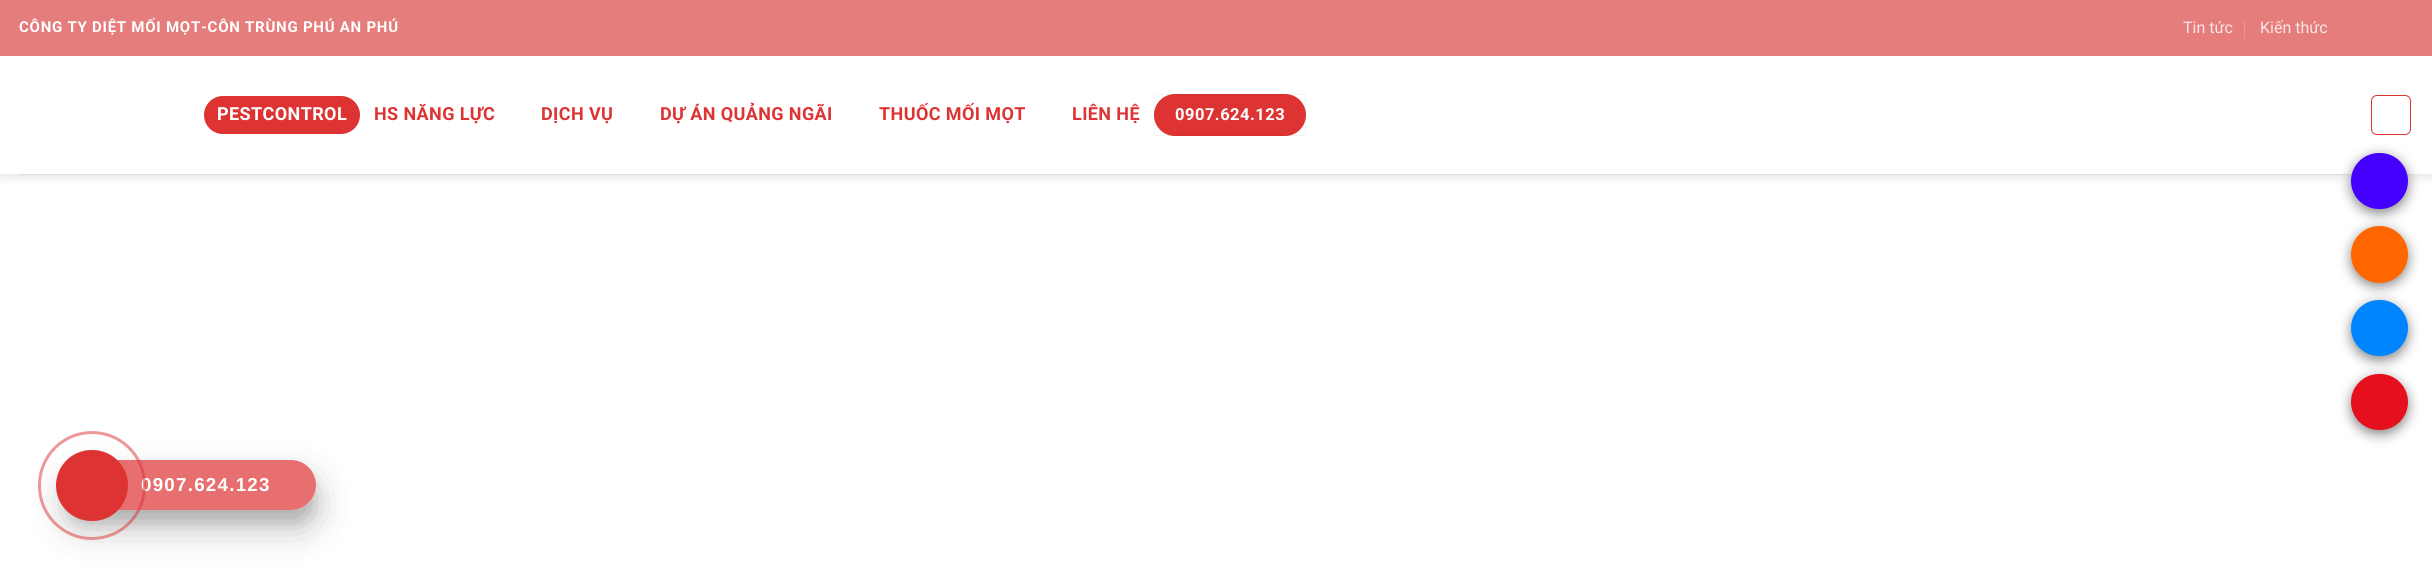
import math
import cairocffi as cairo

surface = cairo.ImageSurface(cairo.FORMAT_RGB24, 2432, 581)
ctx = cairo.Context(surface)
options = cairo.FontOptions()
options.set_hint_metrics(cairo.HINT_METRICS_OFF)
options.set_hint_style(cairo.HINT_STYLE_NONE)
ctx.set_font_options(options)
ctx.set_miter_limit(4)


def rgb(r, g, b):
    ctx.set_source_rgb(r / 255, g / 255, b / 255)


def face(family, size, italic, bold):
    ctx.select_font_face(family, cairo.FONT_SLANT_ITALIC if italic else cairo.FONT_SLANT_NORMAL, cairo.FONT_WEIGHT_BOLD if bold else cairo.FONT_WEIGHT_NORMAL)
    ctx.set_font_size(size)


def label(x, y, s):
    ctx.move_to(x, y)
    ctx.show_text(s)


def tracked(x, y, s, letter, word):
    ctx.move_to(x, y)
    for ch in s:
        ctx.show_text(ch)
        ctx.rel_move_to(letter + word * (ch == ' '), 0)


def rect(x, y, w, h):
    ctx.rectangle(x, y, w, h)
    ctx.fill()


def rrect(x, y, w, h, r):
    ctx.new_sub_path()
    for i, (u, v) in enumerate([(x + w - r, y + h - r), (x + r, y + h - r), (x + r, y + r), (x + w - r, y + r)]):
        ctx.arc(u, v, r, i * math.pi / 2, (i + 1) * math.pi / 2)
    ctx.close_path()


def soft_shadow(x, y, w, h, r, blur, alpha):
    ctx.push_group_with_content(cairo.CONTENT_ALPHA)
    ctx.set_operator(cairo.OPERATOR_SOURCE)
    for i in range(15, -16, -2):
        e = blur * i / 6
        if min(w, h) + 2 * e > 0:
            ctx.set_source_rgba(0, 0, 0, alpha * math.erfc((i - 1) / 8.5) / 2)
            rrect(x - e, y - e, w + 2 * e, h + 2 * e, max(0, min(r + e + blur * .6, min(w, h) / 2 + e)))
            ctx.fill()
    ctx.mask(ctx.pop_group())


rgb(255, 255, 255)
ctx.paint()
ctx.save()
ctx.set_fill_rule(cairo.FILL_RULE_EVEN_ODD)
ctx.new_path()
ctx.move_to(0, 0)
ctx.line_to(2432, 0)
ctx.line_to(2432, 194)
ctx.line_to(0, 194)
ctx.close_path()
ctx.move_to(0, 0)
ctx.line_to(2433, 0)
ctx.line_to(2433, 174)
ctx.line_to(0, 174)
ctx.close_path()
ctx.clip()
rgb(0, 0, 0)
soft_shadow(1, 1, 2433, 174, 0, 6, 0.15)
ctx.restore()
ctx.set_source_rgba(1, 1, 1, 0.9)
rect(1, 173, 2431, 1)
rgb(230, 125, 125)
rect(0, 0, 2432, 56)
face('Roboto', 15, 0, 1)
rgb(255, 255, 255)
tracked(19, 32, 'CÔNG TY DIỆT MỐI MỌT-CÔN TRÙNG PHÚ AN PHÚ', 0.75, 0)
face('Roboto', 16, 0, 0)
rgb(250, 229, 229)
label(2183, 33, 'Tin tức')
rgb(235, 151, 151)
rect(2244, 20, 1, 19)
rgb(250, 229, 229)
label(2260, 33, 'Kiến thức')
rgb(221, 51, 51)
rrect(204, 96, 156, 38, 19)
ctx.fill()
face('Roboto', 18, 0, 1)
rgb(255, 255, 255)
tracked(217, 120, 'PESTCONTROL', 0.4, 0)
rgb(221, 51, 51)
tracked(374, 120, 'HS NĂNG LỰC', 0.4, 0)
tracked(541, 120, 'DỊCH VỤ', 0.4, 0)
tracked(660, 120, 'DỰ ÁN QUẢNG NGÃI', 0.4, 0)
tracked(879, 120, 'THUỐC MỐI MỌT', 0.4, 0)
tracked(1072, 120, 'LIÊN HỆ', 0.4, 0)
rrect(1154, 94, 152, 42, 21)
ctx.fill()
ctx.rectangle(1154.5, 94.5, 151, 41)
ctx.set_source_rgba(0, 0, 0, 0.05)
ctx.set_line_width(1)
ctx.stroke()
face('Roboto', 16.5, 0, 1)
rgb(255, 255, 255)
tracked(1175, 120, '0907.624.123', 0.5, 0)
rrect(2371.5, 95.5, 39, 39, 5.5)
rgb(221, 51, 51)
ctx.stroke()
rgb(223, 223, 223)
rect(19, 174, 2395, 1)
rgb(136, 136, 136)
soft_shadow(2351, 156, 57, 57, 28.5, 6, 1)
rgb(68, 0, 255)
rrect(2351, 153, 57, 56, 28)
ctx.fill()
rgb(136, 136, 136)
soft_shadow(2351, 230, 57, 56, 28, 6, 1)
rgb(255, 102, 0)
ctx.arc(2379.5, 254.5, 28.5, 0, 2 * math.pi)
ctx.fill()
rgb(136, 136, 136)
soft_shadow(2351, 304, 57, 56, 28, 6, 1)
rgb(0, 132, 255)
rrect(2351, 300, 57, 56, 28)
ctx.fill()
rgb(136, 136, 136)
soft_shadow(2351, 378, 57, 56, 28, 6, 1)
rgb(230, 15, 30)
rrect(2351, 374, 57, 56, 28)
ctx.fill()
ctx.save()
ctx.set_fill_rule(cairo.FILL_RULE_EVEN_ODD)
ctx.new_path()
ctx.move_to(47, 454)
ctx.line_to(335, 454)
ctx.line_to(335, 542)
ctx.line_to(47, 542)
ctx.close_path()
ctx.move_to(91, 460)
ctx.line_to(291, 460)
ctx.curve_to(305, 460, 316, 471, 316, 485)
ctx.curve_to(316, 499, 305, 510, 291, 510)
ctx.line_to(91, 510)
ctx.curve_to(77, 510, 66, 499, 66, 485)
ctx.curve_to(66, 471, 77, 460, 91, 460)
ctx.close_path()
ctx.clip()
rgb(0, 0, 0)
soft_shadow(66, 473, 250, 50, 25, 6, 0.1)
ctx.restore()
ctx.save()
ctx.set_fill_rule(cairo.FILL_RULE_EVEN_ODD)
ctx.new_path()
ctx.move_to(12, 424)
ctx.line_to(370, 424)
ctx.line_to(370, 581)
ctx.line_to(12, 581)
ctx.close_path()
ctx.move_to(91, 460)
ctx.line_to(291, 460)
ctx.curve_to(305, 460, 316, 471, 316, 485)
ctx.curve_to(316, 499, 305, 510, 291, 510)
ctx.line_to(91, 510)
ctx.curve_to(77, 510, 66, 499, 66, 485)
ctx.curve_to(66, 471, 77, 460, 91, 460)
ctx.close_path()
ctx.clip()
rgb(0, 0, 0)
soft_shadow(66, 478, 250, 50, 25, 17.5, 0.25)
ctx.restore()
ctx.set_source_rgba(0.867, 0.2, 0.2, 0.7)
rrect(66, 460, 250, 50, 25)
ctx.fill()
face('Liberation Sans', 18.75, 0, 1)
rgb(255, 255, 255)
tracked(141, 491, '0907.624.123', 1.25, 0)
rrect(39.5, 432.5, 105, 106, 52.5)
ctx.set_source_rgba(0.867, 0.2, 0.2, 0.5)
ctx.set_line_width(3)
ctx.stroke()
rgb(221, 51, 51)
rrect(56, 450, 72, 71, 35.5)
ctx.fill()
surface.write_to_png('render.png')
